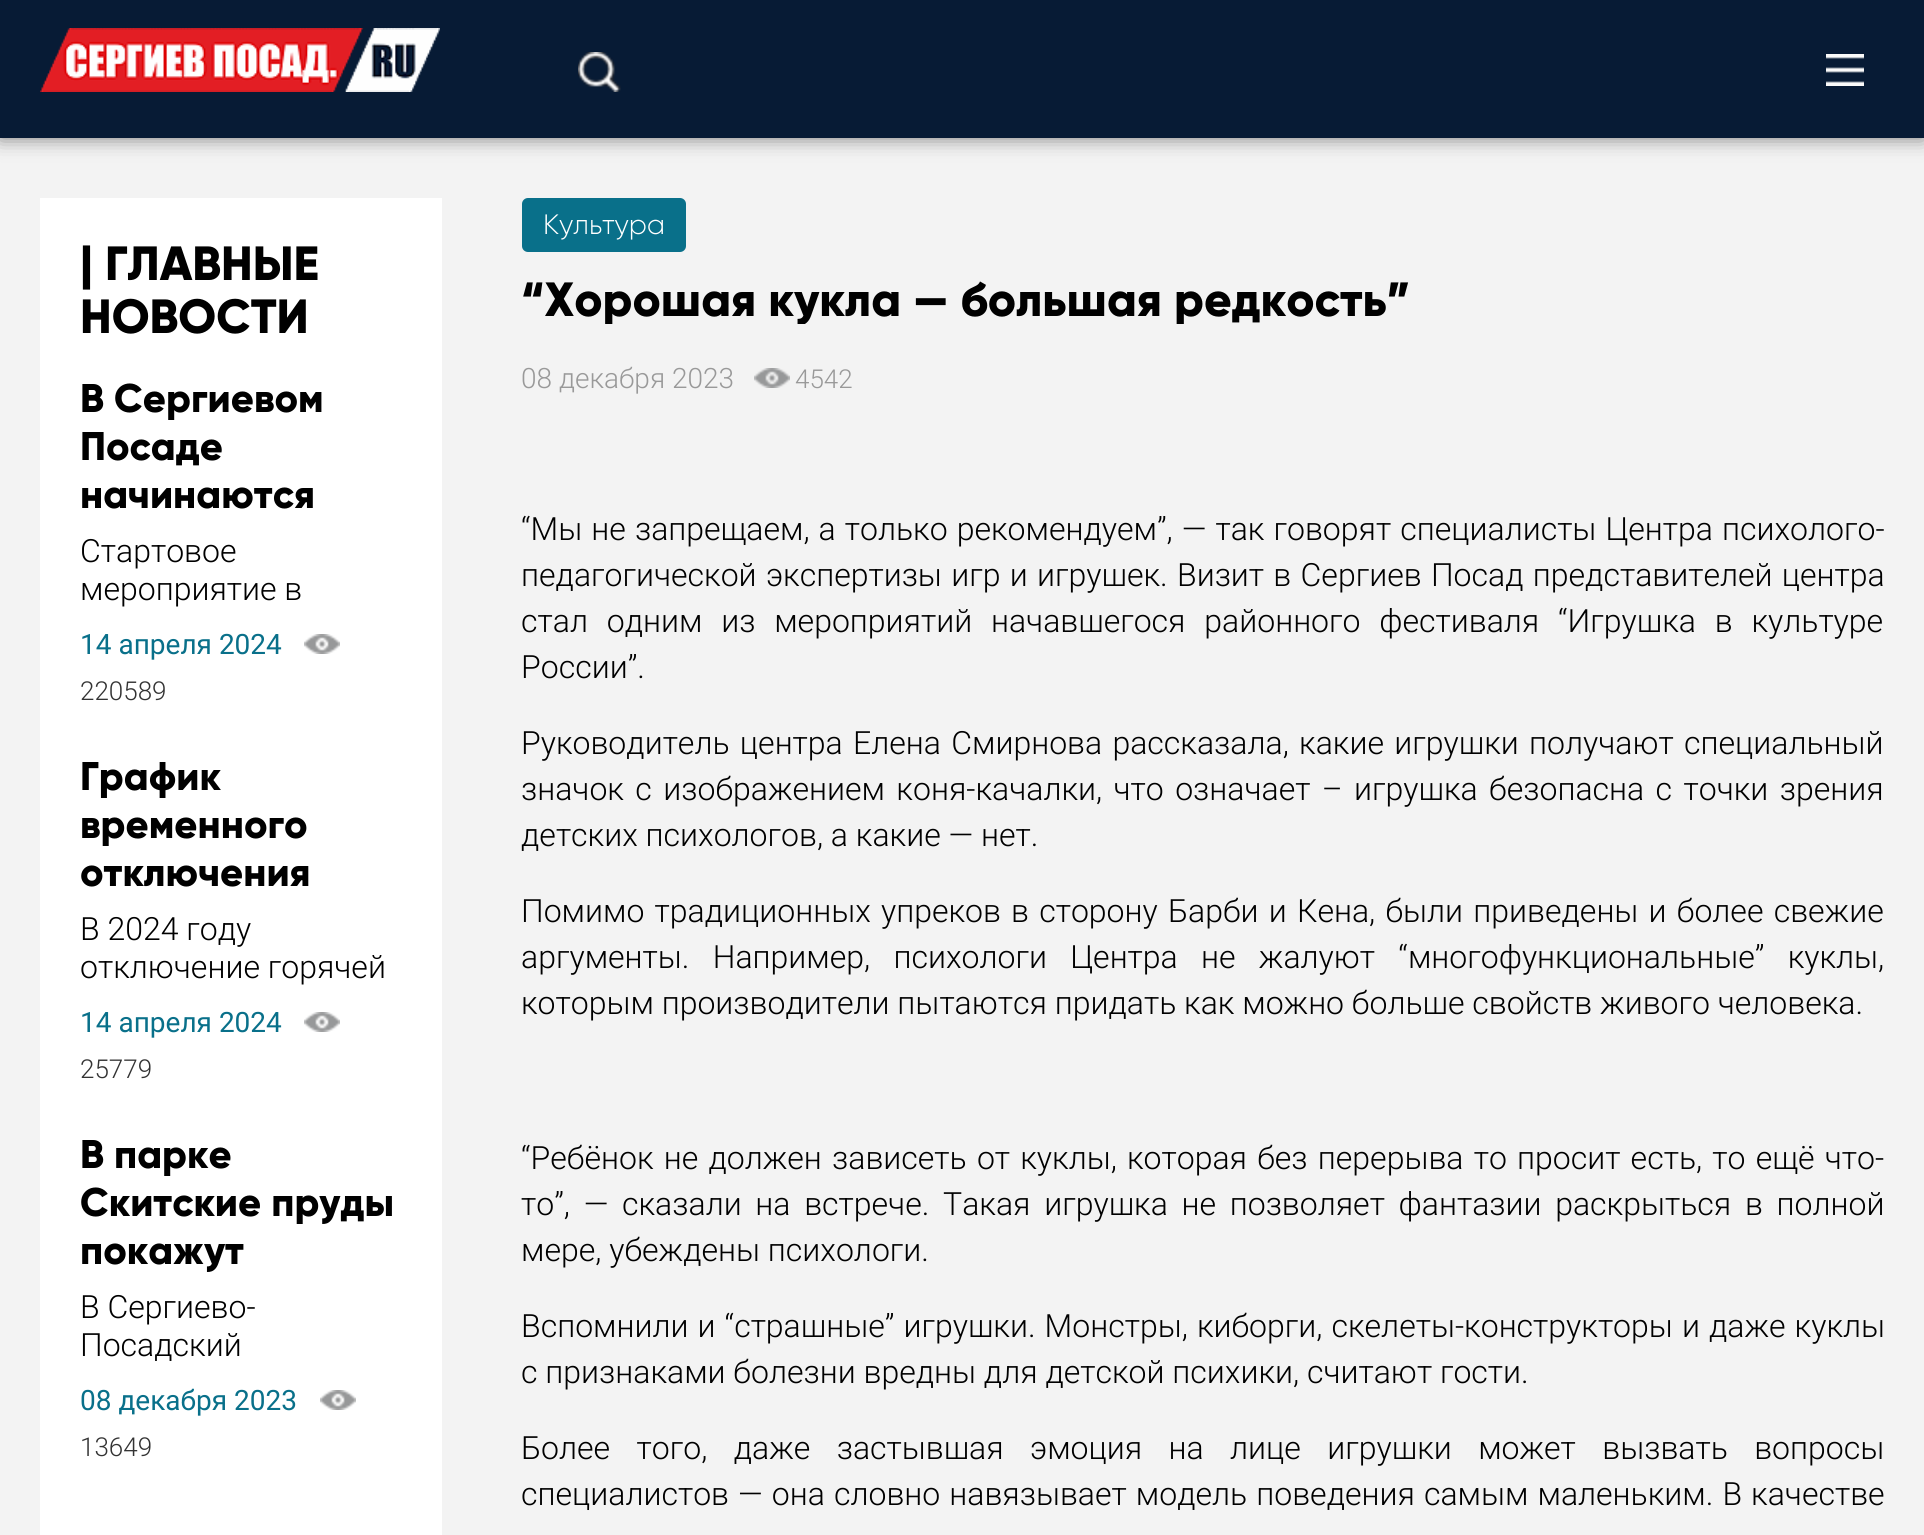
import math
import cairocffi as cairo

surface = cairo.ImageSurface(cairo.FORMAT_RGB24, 1924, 1535)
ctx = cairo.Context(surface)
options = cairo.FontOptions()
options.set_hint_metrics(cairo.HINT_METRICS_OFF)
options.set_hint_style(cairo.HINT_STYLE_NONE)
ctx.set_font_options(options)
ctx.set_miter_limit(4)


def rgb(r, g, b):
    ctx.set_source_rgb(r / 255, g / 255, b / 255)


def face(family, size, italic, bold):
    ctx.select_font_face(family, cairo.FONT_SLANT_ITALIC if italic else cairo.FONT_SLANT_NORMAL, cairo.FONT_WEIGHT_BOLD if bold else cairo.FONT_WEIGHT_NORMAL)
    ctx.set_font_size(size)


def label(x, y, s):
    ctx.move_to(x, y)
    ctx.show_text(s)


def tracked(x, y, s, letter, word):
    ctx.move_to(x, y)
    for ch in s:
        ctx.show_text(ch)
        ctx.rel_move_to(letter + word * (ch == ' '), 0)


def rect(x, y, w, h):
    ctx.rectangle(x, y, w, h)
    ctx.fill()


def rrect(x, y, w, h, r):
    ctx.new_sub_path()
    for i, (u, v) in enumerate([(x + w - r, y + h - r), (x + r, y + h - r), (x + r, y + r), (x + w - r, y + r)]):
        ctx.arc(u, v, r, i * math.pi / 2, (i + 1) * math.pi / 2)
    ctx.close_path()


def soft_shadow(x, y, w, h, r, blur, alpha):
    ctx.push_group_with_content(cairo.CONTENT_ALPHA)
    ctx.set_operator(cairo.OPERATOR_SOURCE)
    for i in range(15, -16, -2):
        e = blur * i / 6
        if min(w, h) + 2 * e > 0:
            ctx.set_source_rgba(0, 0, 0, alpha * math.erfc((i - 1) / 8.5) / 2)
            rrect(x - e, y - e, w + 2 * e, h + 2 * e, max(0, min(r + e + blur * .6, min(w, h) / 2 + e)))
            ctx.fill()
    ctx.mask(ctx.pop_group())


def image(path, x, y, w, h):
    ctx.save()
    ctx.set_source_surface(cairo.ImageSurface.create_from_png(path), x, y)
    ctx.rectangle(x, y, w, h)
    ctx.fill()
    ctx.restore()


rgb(243, 243, 243)
ctx.paint()
rgb(0, 0, 0)
soft_shadow(0, 0, 1924, 138, 0, 10, 0.5)
rgb(7, 27, 53)
rect(0, 0, 1924, 138)
image('image0.png', 40, 28, 400, 64)
image('image1.png', 578, 52, 43, 40)
image('image2.png', 1826, 54, 38, 32)
rgb(255, 255, 255)
rect(40, 198, 402, 1337)
face('Gilroy ExtraBold', 48, 0, 0)
rgb(0, 0, 0)
label(80, 280, '| ГЛАВНЫЕ')
label(80, 333, 'НОВОСТИ')
face('Gilroy ExtraBold', 40, 0, 0)
label(80, 412, 'В Сергиевом')
label(80, 460, 'Посаде')
label(80, 508, 'начинаются')
face('Roboto Light', 32, 0, 0)
label(80, 562, 'Стартовое')
label(80, 600, 'мероприятие в')
face('Roboto', 28, 0, 0)
rgb(9, 112, 138)
label(80, 654, '14 апреля 2024')
image('image3.png', 304, 634, 36, 20)
face('Roboto Light', 26, 0, 0)
rgb(51, 51, 51)
label(80, 700, '220589')
face('Gilroy ExtraBold', 40, 0, 0)
rgb(0, 0, 0)
label(80, 790, 'График')
label(80, 838, 'временного')
label(80, 886, 'отключения')
face('Roboto Light', 32, 0, 0)
label(80, 940, 'В 2024 году')
label(80, 978, 'отключение горячей')
face('Roboto', 28, 0, 0)
rgb(9, 112, 138)
label(80, 1032, '14 апреля 2024')
image('image3.png', 304, 1012, 36, 20)
face('Roboto Light', 26, 0, 0)
rgb(51, 51, 51)
label(80, 1078, '25779')
face('Gilroy ExtraBold', 40, 0, 0)
rgb(0, 0, 0)
label(80, 1168, 'В парке')
label(80, 1216, 'Скитские пруды')
label(80, 1264, 'покажут')
face('Roboto Light', 32, 0, 0)
label(80, 1318, 'В Сергиево-')
label(80, 1356, 'Посадский')
face('Roboto', 28, 0, 0)
rgb(9, 112, 138)
label(80, 1410, '08 декабря 2023')
image('image3.png', 320, 1390, 36, 20)
face('Roboto Light', 26, 0, 0)
rgb(51, 51, 51)
label(80, 1456, '13649')
rgb(9, 112, 138)
rrect(523, 199, 162, 52, 5)
ctx.fill_preserve()
ctx.stroke()
face('Gilroy Light', 28, 0, 0)
rgb(255, 255, 255)
label(543, 234, 'Культура')
ctx.save()
ctx.rectangle(522, 276, 1362, 48)
ctx.clip()
face('Gilroy ExtraBold', 48, 0, 0)
rgb(0, 0, 0)
label(521, 316, '“Хорошая кукла — большая редкость”')
ctx.restore()
face('Roboto Light', 28, 0, 0)
rgb(153, 153, 153)
label(521, 388, '08 декабря 2023')
image('image4.png', 754, 368, 36, 20)
face('Roboto Light', 26, 0, 0)
label(795, 388, '4542')
face('Roboto Light', 32, 0, 0)
rgb(0, 0, 0)
tracked(521, 540, '“Мы не запрещаем, а только рекомендуем”, — так говорят специалисты Центра психолого-', 0, 1.25)
tracked(521, 586, 'педагогической экспертизы игр и игрушек. Визит в Сергиев Посад представителей центра', 0, 1.5)
tracked(521, 632, 'стал одним из мероприятий начавшегося районного фестиваля “Игрушка в культуре', 0, 11)
label(521, 678, 'России”.')
tracked(521, 754, 'Руководитель центра Елена Смирнова рассказала, какие игрушки получают специальный', 0, 2.5)
tracked(521, 800, 'значок с изображением коня-качалки, что означает – игрушка безопасна с точки зрения', 0, 3.6)
label(521, 846, 'детских психологов, а какие — нет.')
tracked(521, 922, 'Помимо традиционных упреков в сторону Барби и Кена, были приведены и более свежие', 0, 2.4)
tracked(521, 968, 'аргументы. Например, психологи Центра не жалуют “многофункциональные” куклы,', 0, 15.5)
label(521, 1014, 'которым производители пытаются придать как можно больше свойств живого человека.')
tracked(521, 1169, '“Ребёнок не должен зависеть от куклы, которая без перерыва то просит есть, то ещё что-', 0, 2.4)
tracked(521, 1215, 'то”, — сказали на встрече. Такая игрушка не позволяет фантазии раскрыться в полной', 0, 5.9)
label(521, 1261, 'мере, убеждены психологи.')
tracked(521, 1337, 'Вспомнили и “страшные” игрушки. Монстры, киборги, скелеты-конструкторы и даже куклы', 0, 1.25)
label(521, 1383, 'с признаками болезни вредны для детской психики, считают гости.')
tracked(521, 1459, 'Более того, даже застывшая эмоция на лице игрушки может вызвать вопросы', 0, 18.6)
tracked(521, 1505, 'специалистов — она словно навязывает модель поведения самым маленьким. В качестве', 0, 1.25)
surface.write_to_png('render.png')
